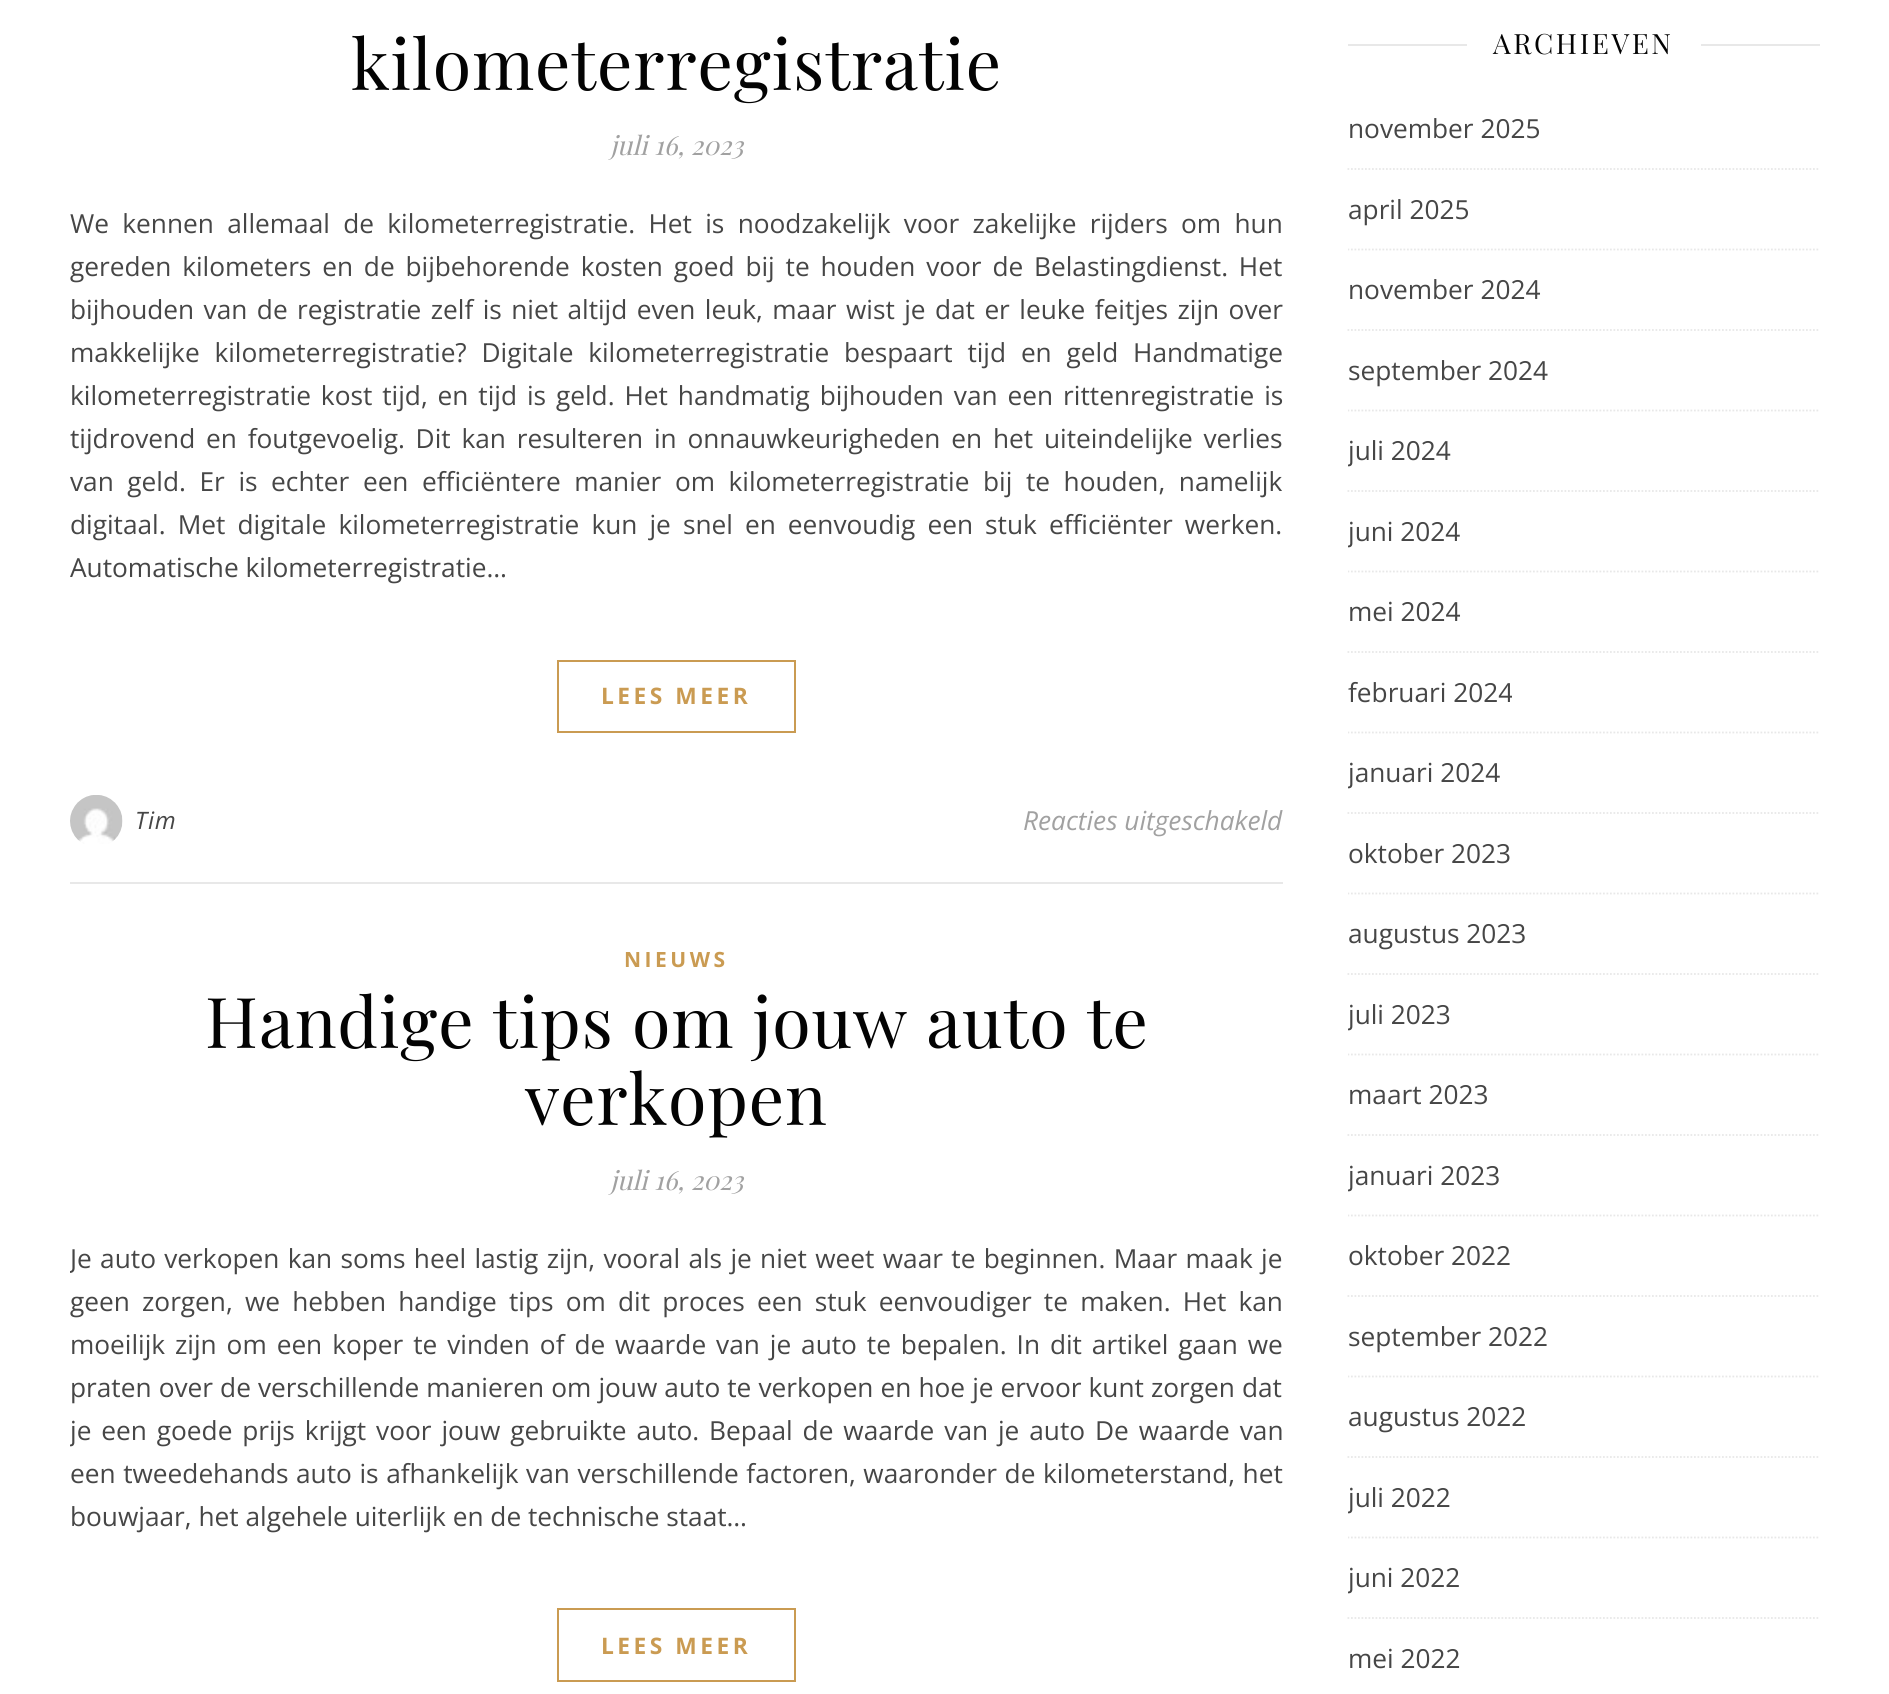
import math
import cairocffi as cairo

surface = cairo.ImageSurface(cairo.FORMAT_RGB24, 1889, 1694)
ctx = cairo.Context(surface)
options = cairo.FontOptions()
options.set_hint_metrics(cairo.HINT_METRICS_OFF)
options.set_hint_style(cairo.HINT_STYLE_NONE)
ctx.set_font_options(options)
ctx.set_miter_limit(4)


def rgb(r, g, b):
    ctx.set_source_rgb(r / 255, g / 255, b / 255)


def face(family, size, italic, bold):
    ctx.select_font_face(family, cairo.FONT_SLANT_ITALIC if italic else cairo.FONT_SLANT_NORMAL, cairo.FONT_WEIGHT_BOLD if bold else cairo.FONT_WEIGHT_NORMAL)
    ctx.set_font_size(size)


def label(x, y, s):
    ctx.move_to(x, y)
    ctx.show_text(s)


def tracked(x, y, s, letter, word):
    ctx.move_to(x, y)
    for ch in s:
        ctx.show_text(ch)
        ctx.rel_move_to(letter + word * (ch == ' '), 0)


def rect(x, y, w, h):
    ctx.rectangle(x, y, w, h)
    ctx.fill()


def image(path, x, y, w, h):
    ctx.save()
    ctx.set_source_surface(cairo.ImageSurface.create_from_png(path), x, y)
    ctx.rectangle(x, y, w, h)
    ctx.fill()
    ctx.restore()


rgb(255, 255, 255)
ctx.paint()
face('Playfair Display', 70, 0, 0)
rgb(3, 3, 3)
tracked(351, 90, 'kilometerregistratie', 0.9, 0)
face('Playfair Display', 26.25, 1, 0)
rgb(161, 161, 161)
label(610, 155, 'juli 16, 2023')
face('Open Sans', 26.25, 0, 0)
rgb(70, 70, 70)
tracked(70, 233, 'We kennen allemaal de kilometerregistratie. Het is noodzakelijk voor zakelijke rijders om hun', 0, 6.5)
tracked(70, 276, 'gereden kilometers en de bijbehorende kosten goed bij te houden voor de Belastingdienst. Het', 0, 4)
tracked(70, 319, 'bijhouden van de registratie zelf is niet altijd even leuk, maar wist je dat er leuke feitjes zijn over', 0, 2.6)
tracked(70, 362, 'makkelijke kilometerregistratie? Digitale kilometerregistratie bespaart tijd en geld Handmatige', 0, 8)
tracked(70, 405, 'kilometerregistratie kost tijd, en tijd is geld. Het handmatig bijhouden van een rittenregistratie is', 0, 3.1)
tracked(70, 448, 'tijdrovend en foutgevoelig. Dit kan resulteren in onnauwkeurigheden en het uiteindelijke verlies', 0, 4)
tracked(70, 491, 'van geld. Er is echter een efficiëntere manier om kilometerregistratie bij te houden, namelijk', 0, 6.75)
tracked(70, 534, 'digitaal. Met digitale kilometerregistratie kun je snel en eenvoudig een stuk efficiënter werken.', 0, 5.25)
label(70, 577, 'Automatische kilometerregistratie…')
ctx.rectangle(558, 661, 237, 71)
rgb(202, 155, 82)
ctx.stroke()
face('Open Sans', 22.75, 0, 1)
tracked(601, 704, 'LEES MEER', 3.5, 0)
rgb(232, 232, 232)
rect(70, 882, 1213, 2)
image('image0.png', 70, 795, 53, 49)
face('Open Sans', 24, 1, 0)
rgb(70, 70, 70)
tracked(135, 829, 'Tim', 0.9, 0)
face('Open Sans', 26.25, 1, 0)
rgb(161, 161, 161)
label(1023, 830, 'Reacties uitgeschakeld')
face('Open Sans', 21, 0, 1)
rgb(202, 155, 82)
tracked(624, 967, 'NIEUWS', 3.5, 0)
face('Playfair Display', 70, 0, 0)
rgb(3, 3, 3)
tracked(205, 1048, 'Handige tips om jouw auto te', 0.9, 0)
tracked(525, 1125, 'verkopen', 0.9, 0)
face('Playfair Display', 26.25, 1, 0)
rgb(161, 161, 161)
label(610, 1190, 'juli 16, 2023')
ctx.save()
ctx.rectangle(70, 1237, 1213, 328)
ctx.clip()
face('Open Sans', 26.25, 0, 0)
rgb(70, 70, 70)
tracked(70, 1268, 'Je auto verkopen kan soms heel lastig zijn, vooral als je niet weet waar te beginnen. Maar maak je', 0, 1.5)
ctx.restore()
face('Open Sans', 26.25, 0, 0)
rgb(70, 70, 70)
tracked(70, 1311, 'geen zorgen, we hebben handige tips om dit proces een stuk eenvoudiger te maken. Het kan', 0, 5.4)
tracked(70, 1354, 'moeilijk zijn om een koper te vinden of de waarde van je auto te bepalen. In dit artikel gaan we', 0, 3.1)
tracked(70, 1397, 'praten over de verschillende manieren om jouw auto te verkopen en hoe je ervoor kunt zorgen dat', 0, 0.25)
ctx.save()
ctx.rectangle(70, 1237, 1213, 328)
ctx.clip()
tracked(70, 1440, 'je een goede prijs krijgt voor jouw gebruikte auto. Bepaal de waarde van je auto De waarde van', 0, 3.1)
ctx.restore()
tracked(70, 1483, 'een tweedehands auto is afhankelijk van verschillende factoren, waaronder de kilometerstand, het', 0, 0.75)
label(70, 1526, 'bouwjaar, het algehele uiterlijk en de technische staat…')
ctx.rectangle(558, 1609, 237, 72)
rgb(202, 155, 82)
ctx.stroke()
face('Open Sans', 22.75, 0, 1)
tracked(601, 1654, 'LEES MEER', 3.5, 0)
rgb(232, 232, 232)
rect(1348, 44, 119, 2)
face('Playfair Display', 28, 0, 0)
rgb(3, 3, 3)
tracked(1493, 54, 'ARCHIEVEN', 2.6, 0)
rgb(232, 232, 232)
rect(1701, 44, 119, 2)
ctx.new_path()
ctx.move_to(1347.5, 169)
ctx.line_to(1820, 169)
ctx.set_line_width(1.8)
ctx.set_dash([1.75, 1.75])
ctx.stroke()
face('Open Sans', 26.25, 0, 0)
rgb(70, 70, 70)
label(1348, 138, 'november 2025')
ctx.save()
ctx.rectangle(1348, 18, 472, 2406)
ctx.clip()
ctx.new_path()
ctx.move_to(1347.5, 249.5)
ctx.line_to(1820, 249.5)
rgb(232, 232, 232)
ctx.stroke()
ctx.restore()
label(1348, 219, 'april 2025')
ctx.new_path()
ctx.move_to(1347.5, 330)
ctx.line_to(1820, 330)
rgb(232, 232, 232)
ctx.stroke()
rgb(70, 70, 70)
label(1348, 299, 'november 2024')
ctx.save()
ctx.rectangle(1348, 18, 472, 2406)
ctx.clip()
ctx.new_path()
ctx.move_to(1347.5, 410.5)
ctx.line_to(1820, 410.5)
rgb(232, 232, 232)
ctx.stroke()
ctx.restore()
label(1348, 380, 'september 2024')
ctx.new_path()
ctx.move_to(1347.5, 491)
ctx.line_to(1820, 491)
rgb(232, 232, 232)
ctx.stroke()
ctx.save()
ctx.rectangle(1348, 411, 103, 79)
ctx.clip()
rgb(70, 70, 70)
label(1348, 460, 'juli 2024')
ctx.restore()
ctx.save()
ctx.rectangle(1348, 18, 472, 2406)
ctx.clip()
ctx.new_path()
ctx.move_to(1347.5, 571.5)
ctx.line_to(1820, 571.5)
ctx.stroke()
ctx.restore()
ctx.save()
ctx.rectangle(1348, 492, 112, 79)
ctx.clip()
rgb(70, 70, 70)
label(1348, 541, 'juni 2024')
ctx.restore()
ctx.new_path()
ctx.move_to(1347.5, 652)
ctx.line_to(1820, 652)
ctx.stroke()
rgb(70, 70, 70)
label(1348, 621, 'mei 2024')
ctx.save()
ctx.rectangle(1348, 18, 472, 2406)
ctx.clip()
ctx.new_path()
ctx.move_to(1347.5, 732.5)
ctx.line_to(1820, 732.5)
rgb(232, 232, 232)
ctx.stroke()
ctx.restore()
ctx.save()
ctx.rectangle(1348, 653, 164, 79)
ctx.clip()
label(1348, 702, 'februari 2024')
ctx.restore()
ctx.new_path()
ctx.move_to(1347.5, 813)
ctx.line_to(1820, 813)
rgb(232, 232, 232)
ctx.stroke()
ctx.save()
ctx.rectangle(1348, 733, 152, 79)
ctx.clip()
rgb(70, 70, 70)
label(1348, 782, 'januari 2024')
ctx.restore()
ctx.save()
ctx.rectangle(1348, 18, 472, 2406)
ctx.clip()
ctx.new_path()
ctx.move_to(1347.5, 893.5)
ctx.line_to(1820, 893.5)
ctx.stroke()
ctx.restore()
rgb(70, 70, 70)
label(1348, 863, 'oktober 2023')
ctx.new_path()
ctx.move_to(1347.5, 974)
ctx.line_to(1820, 974)
rgb(232, 232, 232)
ctx.stroke()
rgb(70, 70, 70)
label(1348, 943, 'augustus 2023')
ctx.save()
ctx.rectangle(1348, 18, 472, 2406)
ctx.clip()
ctx.new_path()
ctx.move_to(1347.5, 1054.5)
ctx.line_to(1820, 1054.5)
rgb(232, 232, 232)
ctx.stroke()
ctx.restore()
ctx.save()
ctx.rectangle(1348, 975, 103, 79)
ctx.clip()
label(1348, 1024, 'juli 2023')
ctx.restore()
ctx.new_path()
ctx.move_to(1347.5, 1135)
ctx.line_to(1820, 1135)
rgb(232, 232, 232)
ctx.stroke()
rgb(70, 70, 70)
label(1348, 1104, 'maart 2023')
ctx.save()
ctx.rectangle(1348, 18, 472, 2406)
ctx.clip()
ctx.new_path()
ctx.move_to(1347.5, 1215.5)
ctx.line_to(1820, 1215.5)
rgb(232, 232, 232)
ctx.stroke()
ctx.restore()
ctx.save()
ctx.rectangle(1348, 1136, 152, 79)
ctx.clip()
label(1348, 1185, 'januari 2023')
ctx.restore()
ctx.new_path()
ctx.move_to(1347.5, 1296)
ctx.line_to(1820, 1296)
rgb(232, 232, 232)
ctx.stroke()
rgb(70, 70, 70)
label(1348, 1265, 'oktober 2022')
ctx.save()
ctx.rectangle(1348, 18, 472, 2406)
ctx.clip()
ctx.new_path()
ctx.move_to(1347.5, 1376.5)
ctx.line_to(1820, 1376.5)
rgb(232, 232, 232)
ctx.stroke()
ctx.restore()
label(1348, 1346, 'september 2022')
ctx.new_path()
ctx.move_to(1347.5, 1457)
ctx.line_to(1820, 1457)
rgb(232, 232, 232)
ctx.stroke()
rgb(70, 70, 70)
label(1348, 1426, 'augustus 2022')
ctx.save()
ctx.rectangle(1348, 18, 472, 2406)
ctx.clip()
ctx.new_path()
ctx.move_to(1347.5, 1537.5)
ctx.line_to(1820, 1537.5)
rgb(232, 232, 232)
ctx.stroke()
ctx.restore()
ctx.save()
ctx.rectangle(1348, 1458, 103, 79)
ctx.clip()
label(1348, 1507, 'juli 2022')
ctx.restore()
ctx.new_path()
ctx.move_to(1347.5, 1618)
ctx.line_to(1820, 1618)
rgb(232, 232, 232)
ctx.stroke()
ctx.save()
ctx.rectangle(1348, 1538, 112, 79)
ctx.clip()
rgb(70, 70, 70)
label(1348, 1587, 'juni 2022')
ctx.restore()
rgb(70, 70, 70)
label(1348, 1668, 'mei 2022')
surface.write_to_png('render.png')
